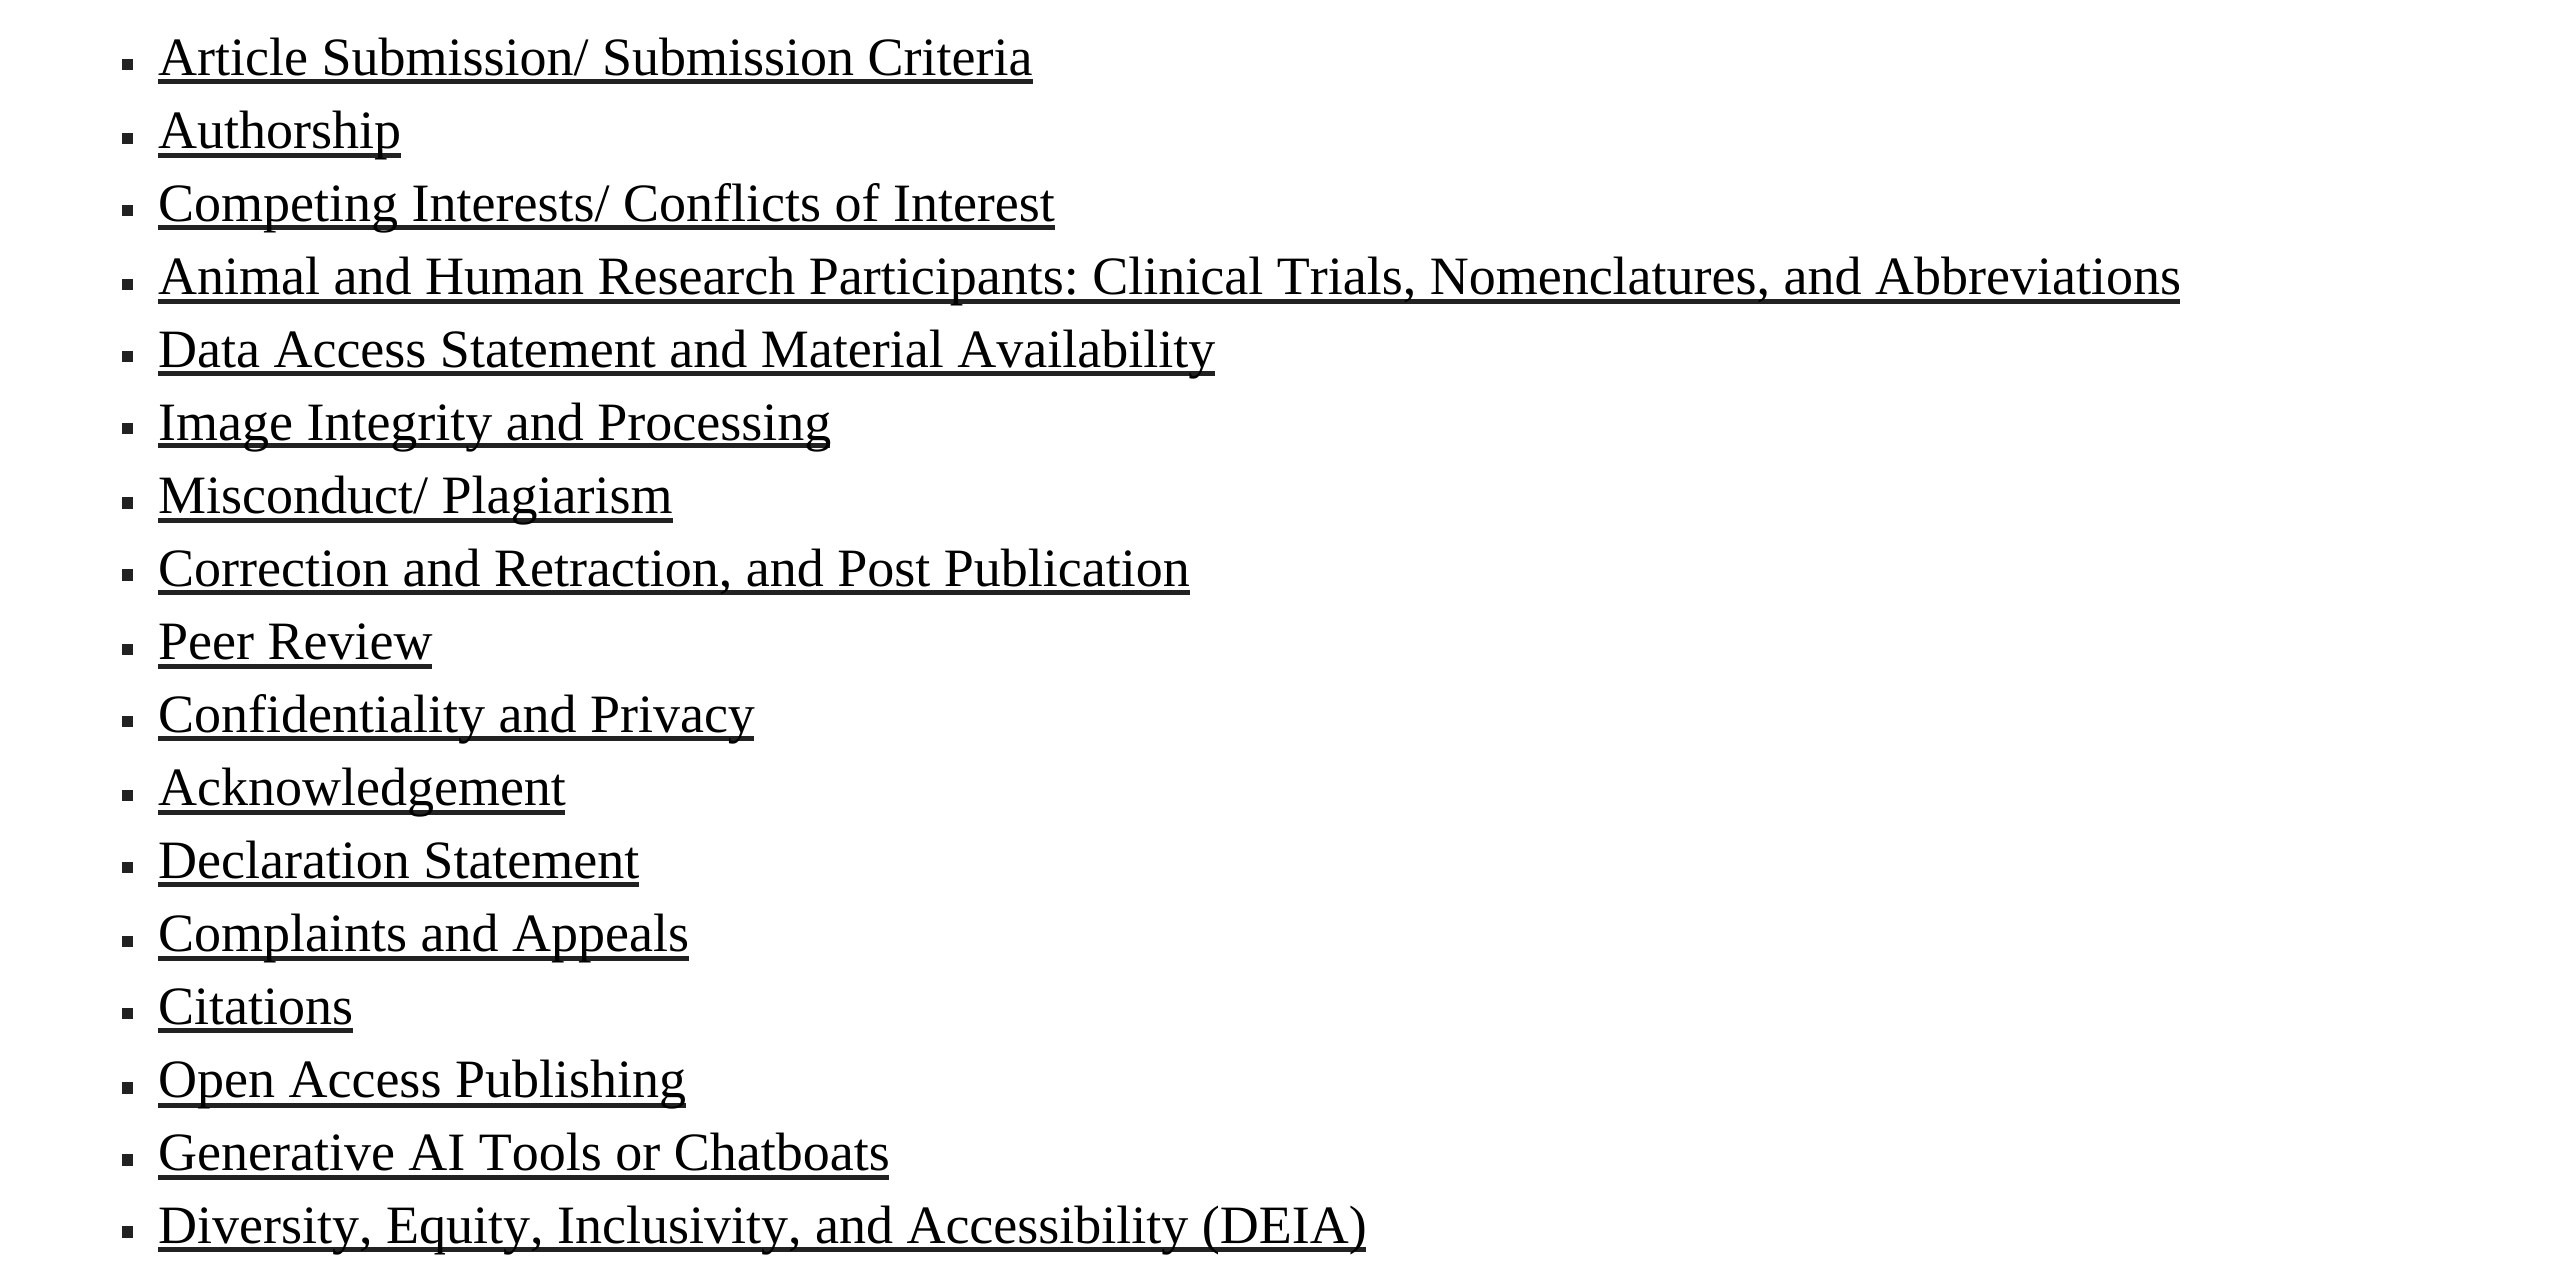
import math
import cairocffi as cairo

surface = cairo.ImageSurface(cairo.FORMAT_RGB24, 2564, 1261)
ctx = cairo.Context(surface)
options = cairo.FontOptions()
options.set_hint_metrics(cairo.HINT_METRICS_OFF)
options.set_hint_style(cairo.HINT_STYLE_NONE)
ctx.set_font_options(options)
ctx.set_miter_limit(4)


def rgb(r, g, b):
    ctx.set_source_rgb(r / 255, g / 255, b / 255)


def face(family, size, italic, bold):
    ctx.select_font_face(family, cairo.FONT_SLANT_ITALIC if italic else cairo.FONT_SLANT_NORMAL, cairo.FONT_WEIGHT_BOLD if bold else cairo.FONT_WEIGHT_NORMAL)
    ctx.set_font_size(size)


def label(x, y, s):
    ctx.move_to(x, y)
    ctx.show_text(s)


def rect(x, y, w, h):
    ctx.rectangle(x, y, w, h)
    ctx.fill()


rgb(255, 255, 255)
ctx.paint()
rgb(34, 34, 34)
rect(122, 59, 11, 11)
face('Liberation Serif', 54, 0, 0)
rgb(0, 0, 0)
label(158, 75, 'Article Submission/ Submission Criteria')
rgb(34, 34, 34)
rect(158, 79, 875, 5)
rect(122, 133, 11, 11)
rect(158, 153, 243, 5)
rgb(0, 0, 0)
label(158, 148, 'Authorship')
rgb(34, 34, 34)
rect(122, 205, 11, 11)
rect(158, 225, 897, 5)
rgb(0, 0, 0)
label(158, 221, 'Competing Interests/ Conflicts of Interest')
rgb(34, 34, 34)
rect(122, 279, 11, 11)
rect(158, 299, 2022, 5)
rgb(0, 0, 0)
label(158, 294, 'Animal and Human Research Participants: Clinical Trials, Nomenclatures, and Abbreviations')
rgb(34, 34, 34)
rect(122, 351, 11, 11)
rect(158, 371, 1057, 5)
rgb(0, 0, 0)
label(158, 367, 'Data Access Statement and Material Availability')
rgb(34, 34, 34)
rect(122, 423, 11, 11)
rect(158, 443, 672, 5)
rgb(0, 0, 0)
label(158, 440, 'Image Integrity and Processing')
rgb(34, 34, 34)
rect(122, 497, 11, 12)
rect(158, 518, 515, 5)
rgb(0, 0, 0)
label(158, 513, 'Misconduct/ Plagiarism')
rgb(34, 34, 34)
rect(122, 569, 11, 12)
rect(158, 590, 1032, 5)
rgb(0, 0, 0)
label(158, 586, 'Correction and Retraction, and Post Publication')
rgb(34, 34, 34)
rect(122, 644, 11, 11)
rgb(0, 0, 0)
label(158, 659, 'Peer Review')
rgb(34, 34, 34)
rect(158, 664, 274, 5)
rect(122, 716, 11, 11)
rect(158, 736, 596, 5)
rgb(0, 0, 0)
label(158, 732, 'Confidentiality and Privacy')
rgb(34, 34, 34)
rect(122, 790, 11, 11)
rect(158, 810, 407, 5)
rgb(0, 0, 0)
label(158, 805, 'Acknowledgement')
rgb(34, 34, 34)
rect(122, 862, 11, 11)
rgb(0, 0, 0)
label(158, 878, 'Declaration Statement')
rgb(34, 34, 34)
rect(158, 882, 481, 5)
rect(122, 936, 11, 11)
rect(158, 956, 531, 5)
rgb(0, 0, 0)
label(158, 951, 'Complaints and Appeals')
rgb(34, 34, 34)
rect(122, 1008, 11, 11)
rgb(0, 0, 0)
label(158, 1024, 'Citations')
rgb(34, 34, 34)
rect(158, 1028, 195, 5)
rect(122, 1082, 11, 12)
rect(158, 1103, 528, 5)
rgb(0, 0, 0)
label(158, 1097, 'Open Access Publishing')
rgb(34, 34, 34)
rect(122, 1154, 11, 12)
rgb(0, 0, 0)
label(158, 1170, 'Generative AI Tools or Chatboats')
rgb(34, 34, 34)
rect(158, 1175, 731, 5)
rect(122, 1226, 11, 12)
rect(158, 1247, 1208, 5)
rgb(0, 0, 0)
label(158, 1243, 'Diversity, Equity, Inclusivity, and Accessibility (DEIA)')
surface.write_to_png('render.png')
